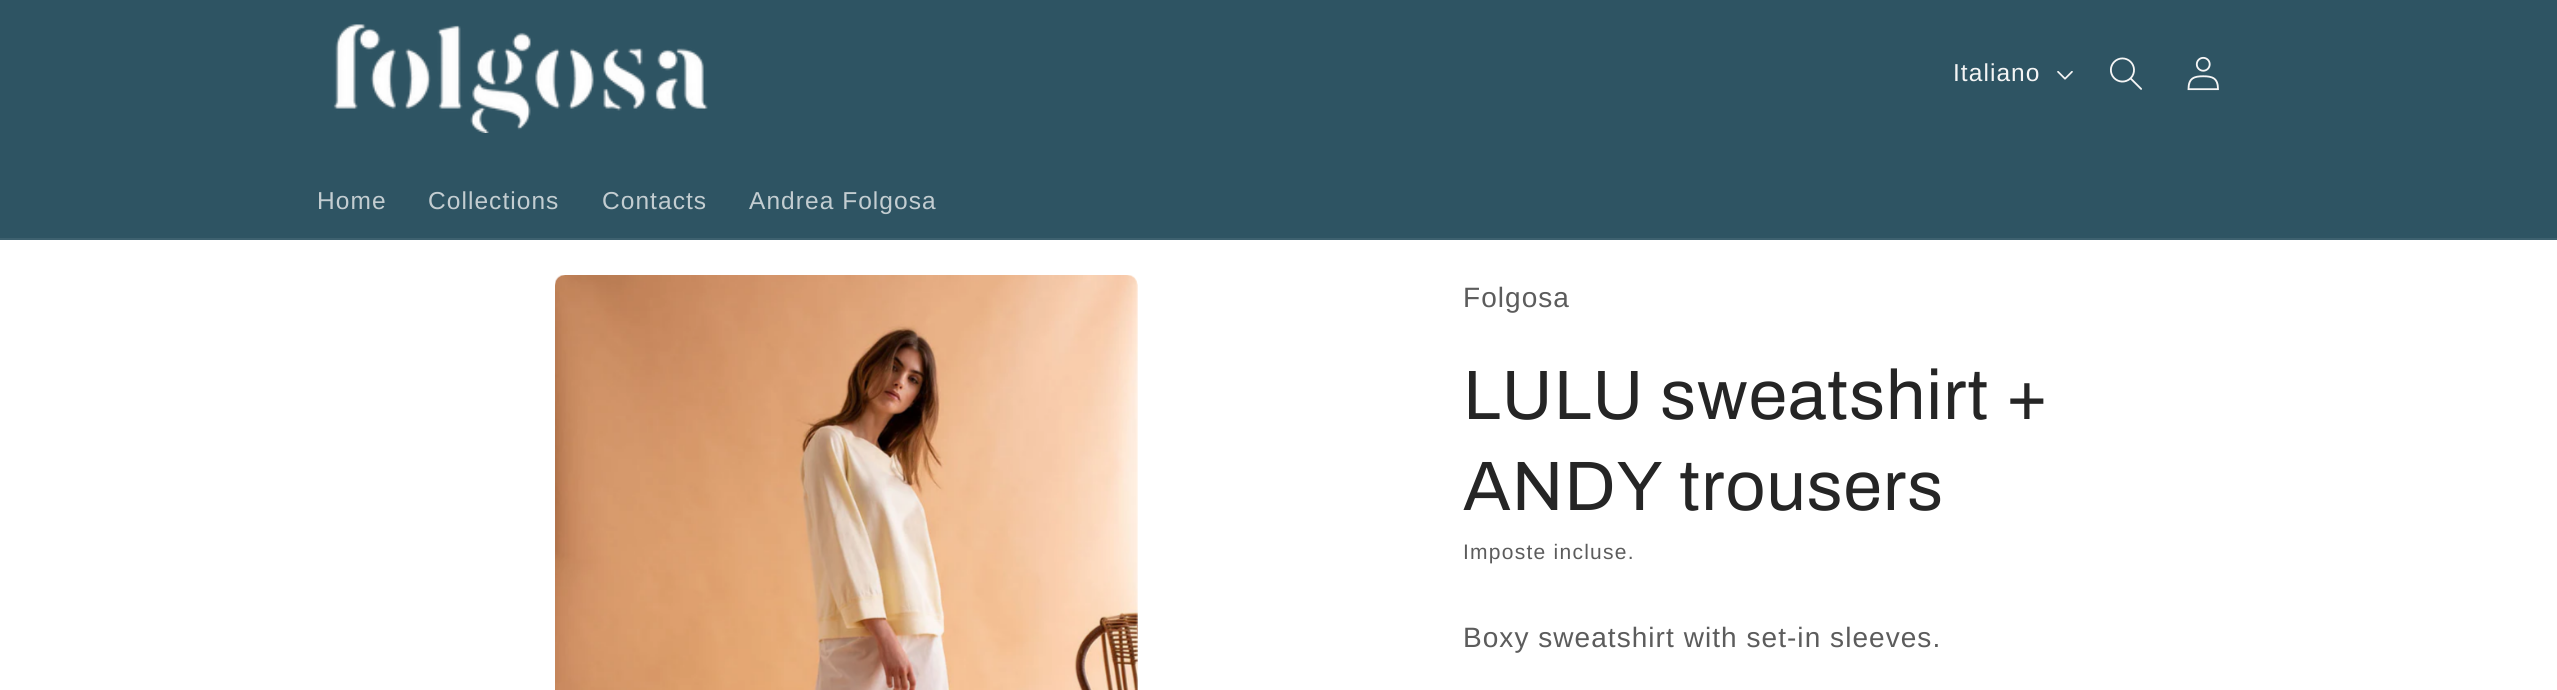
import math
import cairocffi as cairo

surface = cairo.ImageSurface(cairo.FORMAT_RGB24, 2557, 690)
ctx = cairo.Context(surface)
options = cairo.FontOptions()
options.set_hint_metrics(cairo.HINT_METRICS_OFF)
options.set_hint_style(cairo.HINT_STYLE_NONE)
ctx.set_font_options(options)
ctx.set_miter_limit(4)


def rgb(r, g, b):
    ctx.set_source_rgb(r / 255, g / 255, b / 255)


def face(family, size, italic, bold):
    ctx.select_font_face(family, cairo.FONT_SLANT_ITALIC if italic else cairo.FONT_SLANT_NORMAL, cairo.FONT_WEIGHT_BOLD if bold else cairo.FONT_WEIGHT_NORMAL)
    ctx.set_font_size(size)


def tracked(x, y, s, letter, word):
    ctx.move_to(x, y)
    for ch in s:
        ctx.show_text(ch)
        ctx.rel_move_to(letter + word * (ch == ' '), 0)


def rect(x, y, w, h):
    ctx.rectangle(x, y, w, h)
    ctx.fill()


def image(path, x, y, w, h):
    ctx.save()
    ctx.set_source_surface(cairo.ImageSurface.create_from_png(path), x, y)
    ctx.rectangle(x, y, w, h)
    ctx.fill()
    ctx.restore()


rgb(255, 255, 255)
ctx.paint()
rgb(46, 84, 99)
rect(0, 0, 2557, 238)
rgb(62, 97, 111)
rect(0, 238, 2557, 2)
image('image0.png', 333, 24, 375, 109)
face('Arimo', 24.5, 0, 0)
rgb(245, 245, 245)
tracked(1953, 81, 'Italiano', 1.05, 0)
image('image1.png', 2057, 71, 16, 9)
image('image2.png', 2110, 57, 32, 33)
image('image3.png', 2187, 56, 32, 35)
rgb(195, 205, 209)
tracked(317, 209, 'Home', 1.05, 0)
tracked(428, 209, 'Collections', 1.05, 0)
tracked(602, 209, 'Contacts', 1.05, 0)
tracked(749, 209, 'Andrea Folgosa', 1.05, 0)
image('image4.png', 555, 275, 583, 415)
face('Arimo', 28, 0, 0)
rgb(92, 92, 92)
tracked(1463, 307, 'Folgosa', 1.05, 0)
face('Archivo', 70, 0, 0)
rgb(37, 37, 37)
tracked(1463, 419, 'LULU sweatshirt +', 1.05, 0)
tracked(1463, 510, 'ANDY trousers', 1.05, 0)
face('Arimo', 21, 0, 0)
rgb(92, 92, 92)
tracked(1463, 559, 'Imposte incluse.', 1.25, 0)
face('Arimo', 28, 0, 0)
tracked(1463, 647, 'Boxy sweatshirt with set-in sleeves.', 1.05, 0)
surface.write_to_png('render.png')
